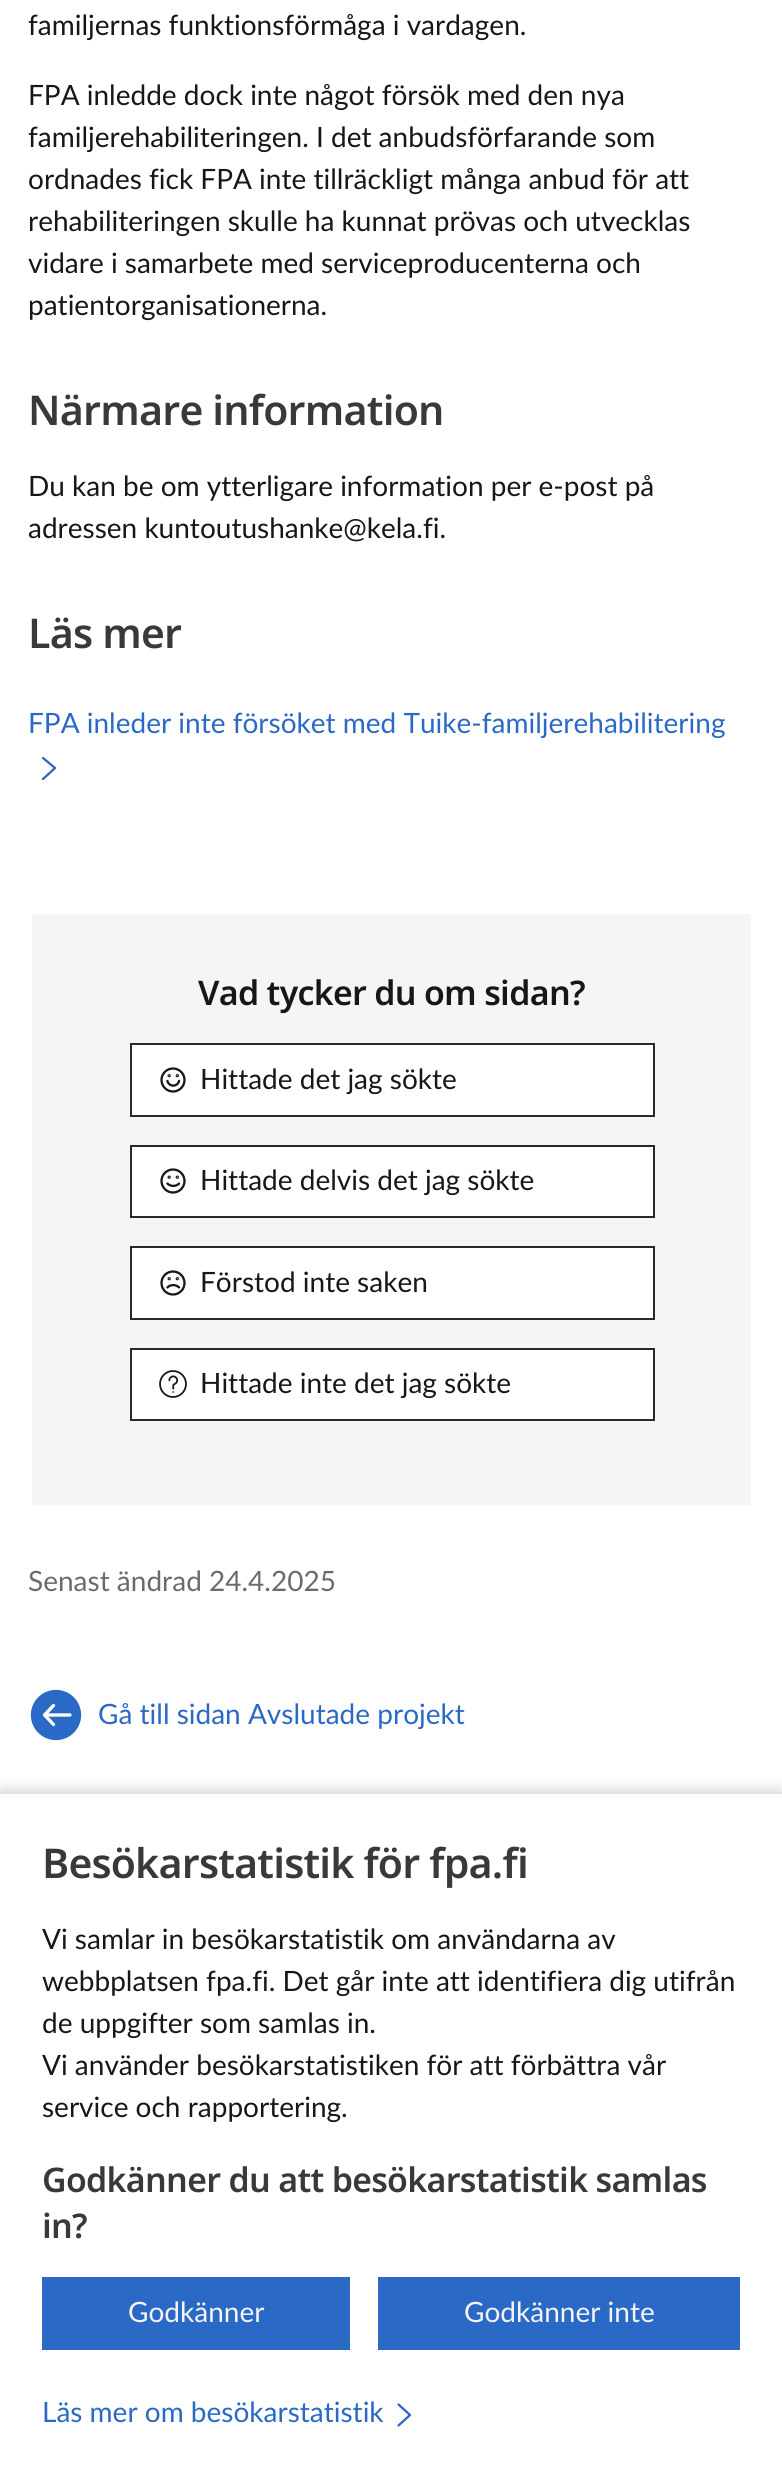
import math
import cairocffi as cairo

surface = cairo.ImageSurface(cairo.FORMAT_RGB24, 782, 2476)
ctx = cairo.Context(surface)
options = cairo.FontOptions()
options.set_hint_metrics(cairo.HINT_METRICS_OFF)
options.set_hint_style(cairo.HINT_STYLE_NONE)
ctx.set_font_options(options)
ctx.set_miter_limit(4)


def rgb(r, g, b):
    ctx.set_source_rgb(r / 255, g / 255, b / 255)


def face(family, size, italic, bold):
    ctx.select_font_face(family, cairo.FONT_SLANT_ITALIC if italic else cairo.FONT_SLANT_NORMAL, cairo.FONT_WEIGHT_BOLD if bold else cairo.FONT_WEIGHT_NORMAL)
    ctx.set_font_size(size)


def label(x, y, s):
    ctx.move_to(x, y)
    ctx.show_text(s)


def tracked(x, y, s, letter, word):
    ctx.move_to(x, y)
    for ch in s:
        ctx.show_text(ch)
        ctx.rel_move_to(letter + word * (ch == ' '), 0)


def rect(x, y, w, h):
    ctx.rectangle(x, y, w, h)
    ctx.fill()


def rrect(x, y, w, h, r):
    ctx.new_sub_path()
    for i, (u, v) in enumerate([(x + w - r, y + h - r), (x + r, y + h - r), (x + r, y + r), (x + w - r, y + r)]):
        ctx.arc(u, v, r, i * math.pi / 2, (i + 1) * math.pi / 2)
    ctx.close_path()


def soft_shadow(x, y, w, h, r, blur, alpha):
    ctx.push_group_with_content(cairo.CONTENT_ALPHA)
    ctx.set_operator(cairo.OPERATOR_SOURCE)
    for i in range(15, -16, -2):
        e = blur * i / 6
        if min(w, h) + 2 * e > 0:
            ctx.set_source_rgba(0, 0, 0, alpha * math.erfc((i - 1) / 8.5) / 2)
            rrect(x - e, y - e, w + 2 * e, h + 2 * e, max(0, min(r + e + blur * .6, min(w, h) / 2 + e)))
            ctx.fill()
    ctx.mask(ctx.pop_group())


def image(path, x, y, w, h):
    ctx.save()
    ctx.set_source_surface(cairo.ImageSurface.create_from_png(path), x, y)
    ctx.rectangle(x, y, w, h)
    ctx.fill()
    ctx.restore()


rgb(255, 255, 255)
ctx.paint()
face('Lato', 28, 0, 0)
rgb(23, 23, 23)
label(28, 35, 'familjernas funktionsförmåga i vardagen.')
label(28, 105, 'FPA inledde dock inte något försök med den nya')
label(28, 147, 'familjerehabiliteringen. I det anbudsförfarande som')
label(28, 189, 'ordnades fick FPA inte tillräckligt många anbud för att')
label(28, 231, 'rehabiliteringen skulle ha kunnat prövas och utvecklas')
label(28, 273, 'vidare i samarbete med serviceproducenterna och')
label(28, 315, 'patientorganisationerna.')
face('Noto Sans SemiBold', 41, 0, 0)
rgb(57, 57, 57)
tracked(28, 425, 'Närmare information', -0.8, 0)
face('Lato', 28, 0, 0)
rgb(23, 23, 23)
label(28, 496, 'Du kan be om ytterligare information per e-post på')
label(28, 538, 'adressen kuntoutushanke@kela.fi.')
face('Noto Sans SemiBold', 41, 0, 0)
rgb(57, 57, 57)
tracked(28, 648, 'Läs mer', -0.8, 0)
face('Lato', 28, 0, 0)
rgb(42, 105, 197)
label(28, 733, 'FPA inleder inte försöket med Tuike-familjerehabilitering')
ctx.new_path()
ctx.move_to(43, 779)
ctx.line_to(55, 768)
ctx.line_to(43, 758)
ctx.set_line_width(2.3)
ctx.set_line_cap(cairo.LINE_CAP_ROUND)
ctx.set_line_join(cairo.LINE_JOIN_ROUND)
ctx.stroke()
rgb(245, 245, 245)
rect(32, 914, 719, 591)
face('Noto Sans SemiBold', 33.9, 0, 0)
rgb(23, 23, 23)
tracked(198, 1005, 'Vad tycker du om sidan?', -0.7, 0)
rgb(255, 255, 255)
ctx.rectangle(131, 1044, 523, 72)
ctx.fill_preserve()
rgb(41, 41, 41)
ctx.set_line_width(2)
ctx.set_line_cap(cairo.LINE_CAP_BUTT)
ctx.set_line_join(cairo.LINE_JOIN_MITER)
ctx.stroke()
image('image0.png', 160, 1067, 26, 26)
face('Lato', 28, 0, 0)
rgb(23, 23, 23)
label(200, 1089, 'Hittade det jag sökte')
rgb(255, 255, 255)
ctx.rectangle(131, 1146, 523, 71)
ctx.fill_preserve()
rgb(41, 41, 41)
ctx.stroke()
image('image1.png', 160, 1168, 26, 26)
rgb(23, 23, 23)
label(200, 1190, 'Hittade delvis det jag sökte')
rgb(255, 255, 255)
ctx.rectangle(131, 1247, 523, 72)
ctx.fill_preserve()
rgb(41, 41, 41)
ctx.stroke()
image('image2.png', 160, 1270, 26, 26)
rgb(23, 23, 23)
label(200, 1292, 'Förstod inte saken')
rgb(255, 255, 255)
ctx.rectangle(131, 1349, 523, 71)
ctx.fill_preserve()
rgb(41, 41, 41)
ctx.stroke()
image('image3.png', 159, 1370, 28, 28)
rgb(23, 23, 23)
label(200, 1393, 'Hittade inte det jag sökte')
rgb(107, 107, 107)
label(28, 1591, 'Senast ändrad 24.4.2025')
rgb(42, 105, 197)
ctx.new_path()
ctx.arc(56, 1715, 23.5, 0, 2 * math.pi)
ctx.fill_preserve()
ctx.set_line_width(3.3)
ctx.stroke()
ctx.new_path()
ctx.move_to(53.5, 1705.5)
ctx.line_to(44.5, 1715)
ctx.line_to(53.5, 1724.5)
ctx.move_to(70, 1715)
ctx.line_to(44.5, 1715)
rgb(255, 255, 255)
ctx.set_line_cap(cairo.LINE_CAP_ROUND)
ctx.set_line_join(cairo.LINE_JOIN_ROUND)
ctx.stroke()
rgb(42, 105, 197)
label(98, 1724, 'Gå till sidan Avslutade projekt')
rgb(0, 0, 0)
soft_shadow(0, 1789, 782, 684, 0, 7, 0.15)
rgb(255, 255, 255)
rect(0, 1794, 782, 682)
rgb(225, 225, 225)
rect(0, 1792, 782, 2)
face('Noto Sans SemiBold', 41, 0, 0)
rgb(57, 57, 57)
tracked(42, 1878, 'Besökarstatistik för fpa.fi', -0.8, 0)
face('Lato', 28, 0, 0)
rgb(23, 23, 23)
label(42, 1949, 'Vi samlar in besökarstatistik om användarna av')
label(42, 1991, 'webbplatsen fpa.fi. Det går inte att identifiera dig utifrån')
label(42, 2033, 'de uppgifter som samlas in.')
label(42, 2075, 'Vi använder besökarstatistiken för att förbättra vår')
label(42, 2117, 'service och rapportering.')
face('Noto Sans SemiBold', 33.9, 0, 0)
rgb(57, 57, 57)
tracked(42, 2192, 'Godkänner du att besökarstatistik samlas', -0.7, 0)
tracked(42, 2238, 'in?', -0.7, 0)
rgb(42, 105, 197)
rect(42, 2277, 308, 73)
face('Lato', 28, 0, 0)
rgb(245, 245, 245)
label(128, 2322, 'Godkänner')
rgb(42, 105, 197)
rect(378, 2277, 362, 73)
rgb(245, 245, 245)
label(464, 2322, 'Godkänner inte')
rgb(42, 105, 197)
label(42, 2422, 'Läs mer om besökarstatistik')
ctx.new_path()
ctx.move_to(398.5, 2425.5)
ctx.line_to(410, 2415)
ctx.line_to(398.5, 2404.5)
ctx.set_line_width(2.3)
ctx.stroke()
surface.write_to_png('render.png')
